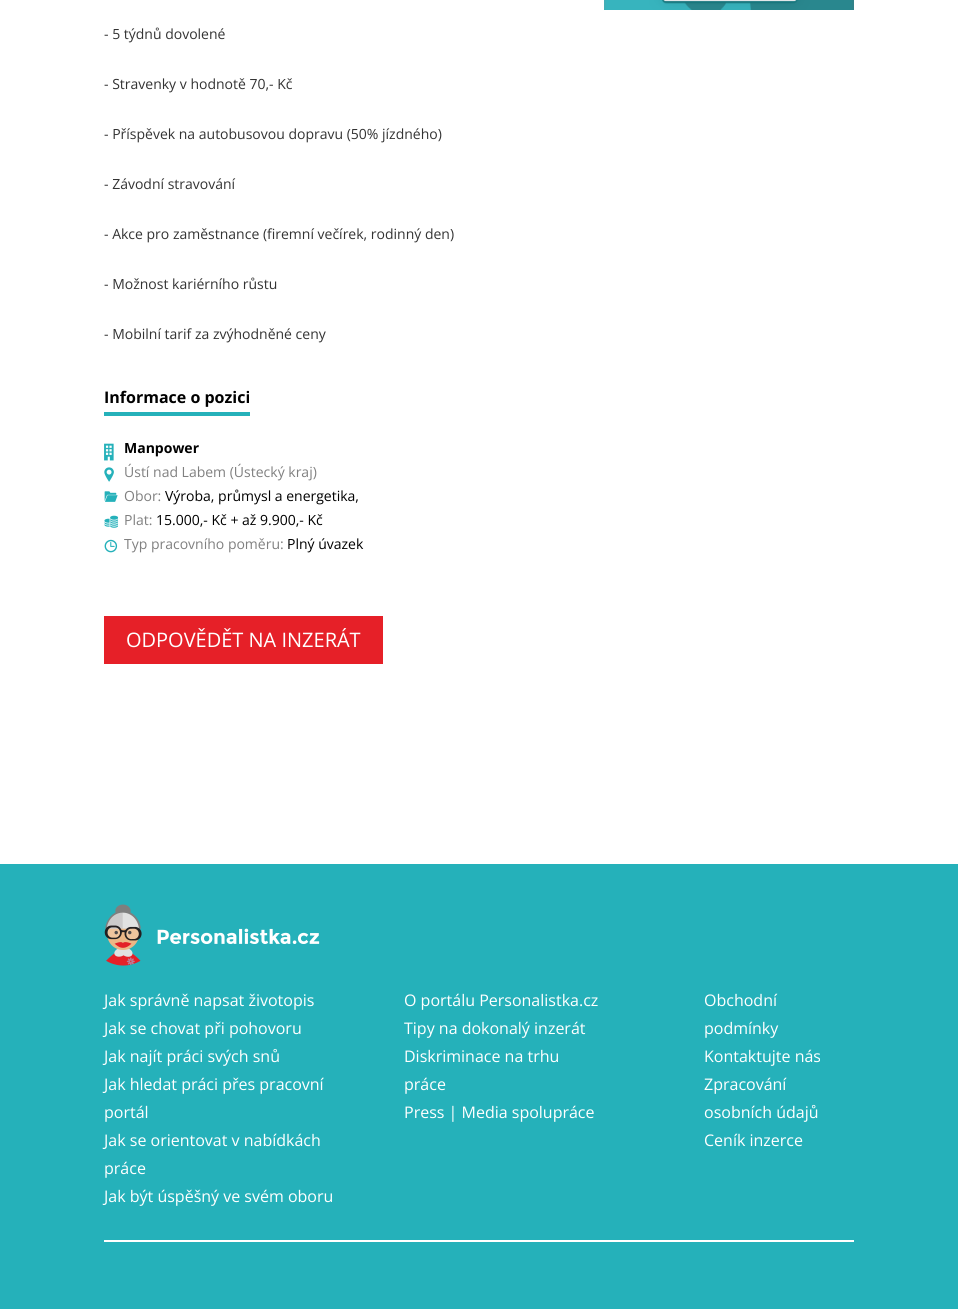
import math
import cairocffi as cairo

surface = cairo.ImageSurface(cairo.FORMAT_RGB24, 958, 1309)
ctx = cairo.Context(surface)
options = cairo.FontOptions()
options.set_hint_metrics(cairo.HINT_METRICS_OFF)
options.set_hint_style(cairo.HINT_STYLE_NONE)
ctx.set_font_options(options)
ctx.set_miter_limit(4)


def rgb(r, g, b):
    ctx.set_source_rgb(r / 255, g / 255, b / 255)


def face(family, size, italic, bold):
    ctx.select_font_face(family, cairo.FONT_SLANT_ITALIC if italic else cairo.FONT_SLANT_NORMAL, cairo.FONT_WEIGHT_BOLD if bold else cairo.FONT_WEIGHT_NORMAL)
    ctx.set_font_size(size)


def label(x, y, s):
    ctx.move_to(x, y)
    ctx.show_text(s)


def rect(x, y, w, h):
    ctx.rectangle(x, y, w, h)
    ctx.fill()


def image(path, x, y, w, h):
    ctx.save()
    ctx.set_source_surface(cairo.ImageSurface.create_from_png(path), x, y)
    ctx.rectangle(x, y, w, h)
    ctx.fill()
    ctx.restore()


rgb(255, 255, 255)
ctx.paint()
image('image0.png', 604, 0, 250, 10)
face('Open Sans', 14, 0, 0)
rgb(51, 51, 51)
label(104, 39, '- 5 týdnů dovolené')
label(104, 89, '- Stravenky v hodnotě 70,- Kč')
label(104, 139, '- Příspěvek na autobusovou dopravu (50% jízdného)')
label(104, 189, '- Závodní stravování')
label(104, 239, '- Akce pro zaměstnance (firemní večírek, rodinný den)')
label(104, 289, '- Možnost kariérního růstu')
label(104, 339, '- Mobilní tarif za zvýhodněné ceny')
rgb(37, 177, 186)
rect(104, 412, 146, 4)
face('Open Sans', 16, 0, 1)
rgb(0, 0, 0)
label(104, 403, 'Informace o pozici')
image('image1.png', 104, 443, 10, 18)
face('Open Sans', 14, 0, 1)
label(124, 453, 'Manpower')
image('image2.png', 104, 467, 10, 15)
face('Open Sans', 14, 0, 0)
rgb(128, 128, 128)
label(124, 477, 'Ústí nad Labem (Ústecký kraj)')
image('image3.png', 104, 491, 14, 11)
label(124, 501, 'Obor:')
rgb(0, 0, 0)
label(165, 501, 'Výroba, průmysl a energetika,')
image('image4.png', 104, 515, 15, 13)
rgb(128, 128, 128)
label(124, 525, 'Plat:')
rgb(0, 0, 0)
label(156, 525, '15.000,- Kč + až 9.900,- Kč')
image('image5.png', 104, 539, 14, 14)
rgb(128, 128, 128)
label(124, 549, 'Typ pracovního poměru:')
rgb(0, 0, 0)
label(287, 549, 'Plný úvazek')
rgb(230, 32, 40)
rect(104, 616, 279, 48)
face('Open Sans', 20, 0, 0)
rgb(255, 255, 255)
label(126, 647, 'ODPOVĚDĚT NA INZERÁT')
rgb(37, 177, 186)
rect(0, 864, 958, 445)
image('image6.png', 104, 904, 216, 62)
face('Open Sans', 16, 0, 0)
rgb(255, 255, 255)
label(104, 1006, 'Jak správně napsat životopis')
label(104, 1034, 'Jak se chovat při pohovoru')
label(104, 1062, 'Jak najít práci svých snů')
label(104, 1090, 'Jak hledat práci přes pracovní')
label(104, 1118, 'portál')
label(104, 1146, 'Jak se orientovat v nabídkách')
label(104, 1174, 'práce')
label(104, 1202, 'Jak být úspěšný ve svém oboru')
label(404, 1006, 'O portálu Personalistka.cz')
label(404, 1034, 'Tipy na dokonalý inzerát')
label(404, 1062, 'Diskriminace na trhu')
label(404, 1090, 'práce')
label(404, 1118, 'Press | Media spolupráce')
label(704, 1006, 'Obchodní')
label(704, 1034, 'podmínky')
label(704, 1062, 'Kontaktujte nás')
label(704, 1090, 'Zpracování')
label(704, 1118, 'osobních údajů')
label(704, 1146, 'Ceník inzerce')
rect(104, 1240, 750, 2)
surface.write_to_png('render.png')
